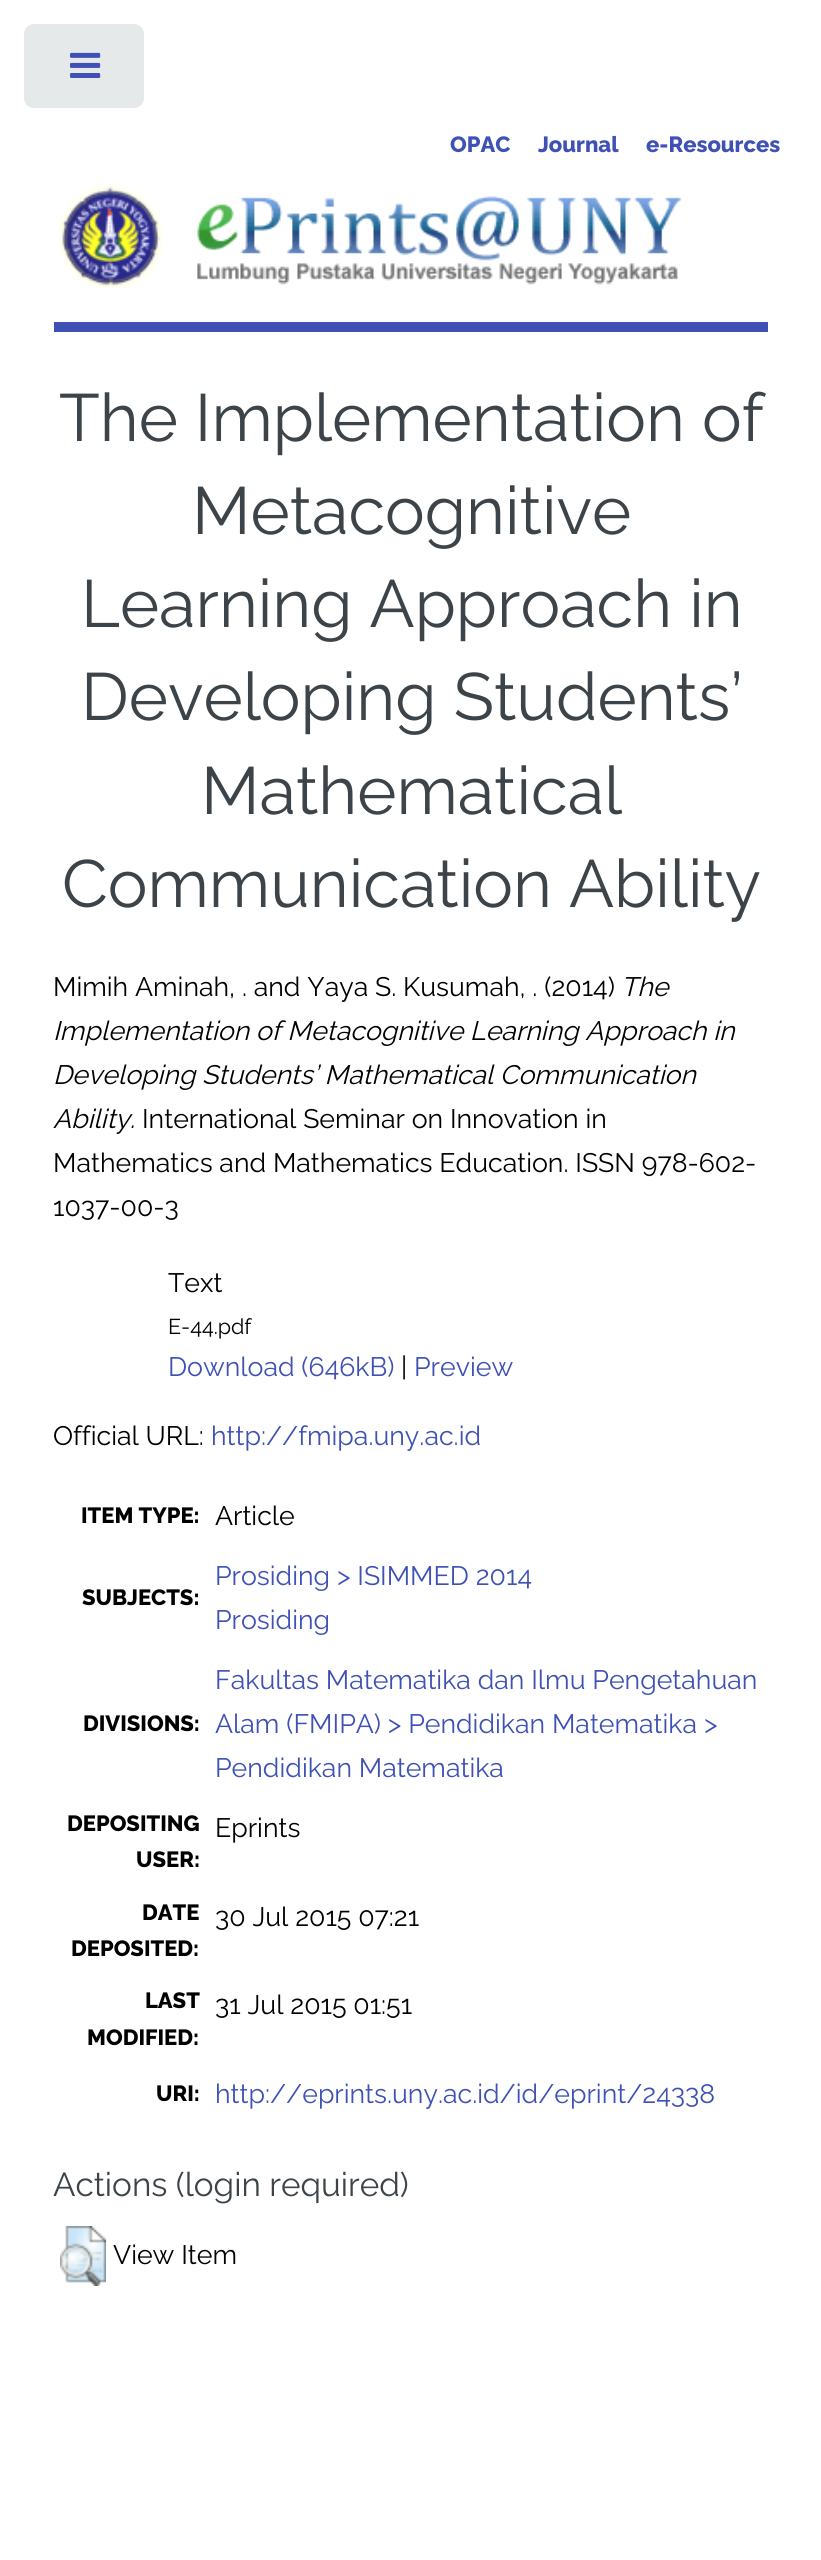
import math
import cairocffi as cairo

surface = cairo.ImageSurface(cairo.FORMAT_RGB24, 821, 2560)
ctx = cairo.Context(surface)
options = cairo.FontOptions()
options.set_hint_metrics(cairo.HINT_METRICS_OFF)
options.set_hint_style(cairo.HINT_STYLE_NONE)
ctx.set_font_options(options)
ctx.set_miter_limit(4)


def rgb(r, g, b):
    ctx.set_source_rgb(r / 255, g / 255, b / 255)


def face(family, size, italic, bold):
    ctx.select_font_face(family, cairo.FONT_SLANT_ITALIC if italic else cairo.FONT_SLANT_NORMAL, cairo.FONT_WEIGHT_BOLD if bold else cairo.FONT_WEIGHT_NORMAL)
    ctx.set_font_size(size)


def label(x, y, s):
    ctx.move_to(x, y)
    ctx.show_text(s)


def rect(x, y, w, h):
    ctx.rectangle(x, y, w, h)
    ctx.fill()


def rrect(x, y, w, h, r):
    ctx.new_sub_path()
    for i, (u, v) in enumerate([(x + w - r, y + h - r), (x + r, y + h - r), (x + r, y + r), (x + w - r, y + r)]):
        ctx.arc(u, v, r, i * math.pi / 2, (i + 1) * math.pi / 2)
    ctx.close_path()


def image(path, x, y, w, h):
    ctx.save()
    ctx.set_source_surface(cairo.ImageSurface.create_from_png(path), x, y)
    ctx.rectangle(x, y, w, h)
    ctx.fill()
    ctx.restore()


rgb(255, 255, 255)
ctx.paint()
rgb(230, 233, 233)
rrect(24, 24, 120, 84, 10)
ctx.fill()
image('image0.png', 70, 52, 31, 26)
rgb(63, 81, 181)
rect(54, 322, 714, 10)
face('Raleway ExtraBold', 22, 0, 0)
label(450, 152, 'OPAC')
label(538, 152, 'Journal')
label(646, 152, 'e-Resources')
image('image1.png', 58, 184, 624, 106)
face('Raleway', 66.75, 0, 0)
rgb(61, 68, 73)
label(59, 441, 'The Implementation of')
label(192, 534, 'Metacognitive')
label(81, 627, 'Learning Approach in')
label(81, 720, 'Developing Students’')
label(201, 814, 'Mathematical')
label(62, 907, 'Communication Ability')
face('Raleway', 26.7, 0, 0)
rgb(0, 0, 0)
label(53, 996, 'Mimih Aminah, . and Yaya S. Kusumah, . (2014)')
face('Raleway', 26.7, 1, 0)
label(621, 996, 'The')
label(53, 1040, 'Implementation of Metacognitive Learning Approach in')
label(53, 1084, 'Developing Students’ Mathematical Communication')
label(53, 1128, 'Ability.')
face('Raleway', 26.7, 0, 0)
label(142, 1128, 'International Seminar on Innovation in')
label(53, 1172, 'Mathematics and Mathematics Education. ISSN 978-602-')
label(53, 1216, '1037-00-3')
label(168, 1292, 'Text')
face('Raleway', 21.5, 0, 0)
label(168, 1334, 'E-44.pdf')
face('Raleway', 26.7, 0, 0)
rgb(63, 81, 181)
label(168, 1376, 'Download (646kB)')
rgb(0, 0, 0)
label(401, 1376, '|')
rgb(63, 81, 181)
label(414, 1376, 'Preview')
rgb(0, 0, 0)
label(53, 1445, 'Official URL:')
rgb(63, 81, 181)
label(211, 1445, 'http://fmipa.uny.ac.id')
face('Raleway ExtraBold', 22, 0, 0)
rgb(0, 0, 0)
label(81, 1523, 'ITEM TYPE:')
face('Raleway', 26.7, 0, 0)
label(215, 1525, 'Article')
face('Raleway ExtraBold', 22, 0, 0)
label(82, 1605, 'SUBJECTS:')
face('Raleway', 26.7, 0, 0)
rgb(63, 81, 181)
label(215, 1585, 'Prosiding > ISIMMED 2014')
label(215, 1629, 'Prosiding')
face('Raleway ExtraBold', 22, 0, 0)
rgb(0, 0, 0)
label(83, 1731, 'DIVISIONS:')
face('Raleway', 26.7, 0, 0)
rgb(63, 81, 181)
label(215, 1689, 'Fakultas Matematika dan Ilmu Pengetahuan')
label(215, 1733, 'Alam (FMIPA) > Pendidikan Matematika >')
label(215, 1777, 'Pendidikan Matematika')
face('Raleway ExtraBold', 22, 0, 0)
rgb(0, 0, 0)
label(67, 1831, 'DEPOSITING')
label(136, 1867, 'USER:')
face('Raleway', 26.7, 0, 0)
label(215, 1837, 'Eprints')
face('Raleway ExtraBold', 22, 0, 0)
label(142, 1920, 'DATE')
label(71, 1956, 'DEPOSITED:')
face('Raleway', 26.7, 0, 0)
label(215, 1926, '30 Jul 2015 07:21')
face('Raleway ExtraBold', 22, 0, 0)
label(145, 2008, 'LAST')
label(87, 2045, 'MODIFIED:')
face('Raleway', 26.7, 0, 0)
label(215, 2014, '31 Jul 2015 01:51')
face('Raleway ExtraBold', 22, 0, 0)
label(156, 2101, 'URI:')
face('Raleway', 26.7, 0, 0)
rgb(63, 81, 181)
label(215, 2103, 'http://eprints.uny.ac.id/id/eprint/24338')
face('Raleway', 33.25, 0, 0)
rgb(61, 68, 73)
label(53, 2196, 'Actions (login required)')
image('image2.png', 60, 2226, 46, 60)
face('Raleway', 26.7, 0, 0)
rgb(0, 0, 0)
label(113, 2264, 'View Item')
surface.write_to_png('render.png')
